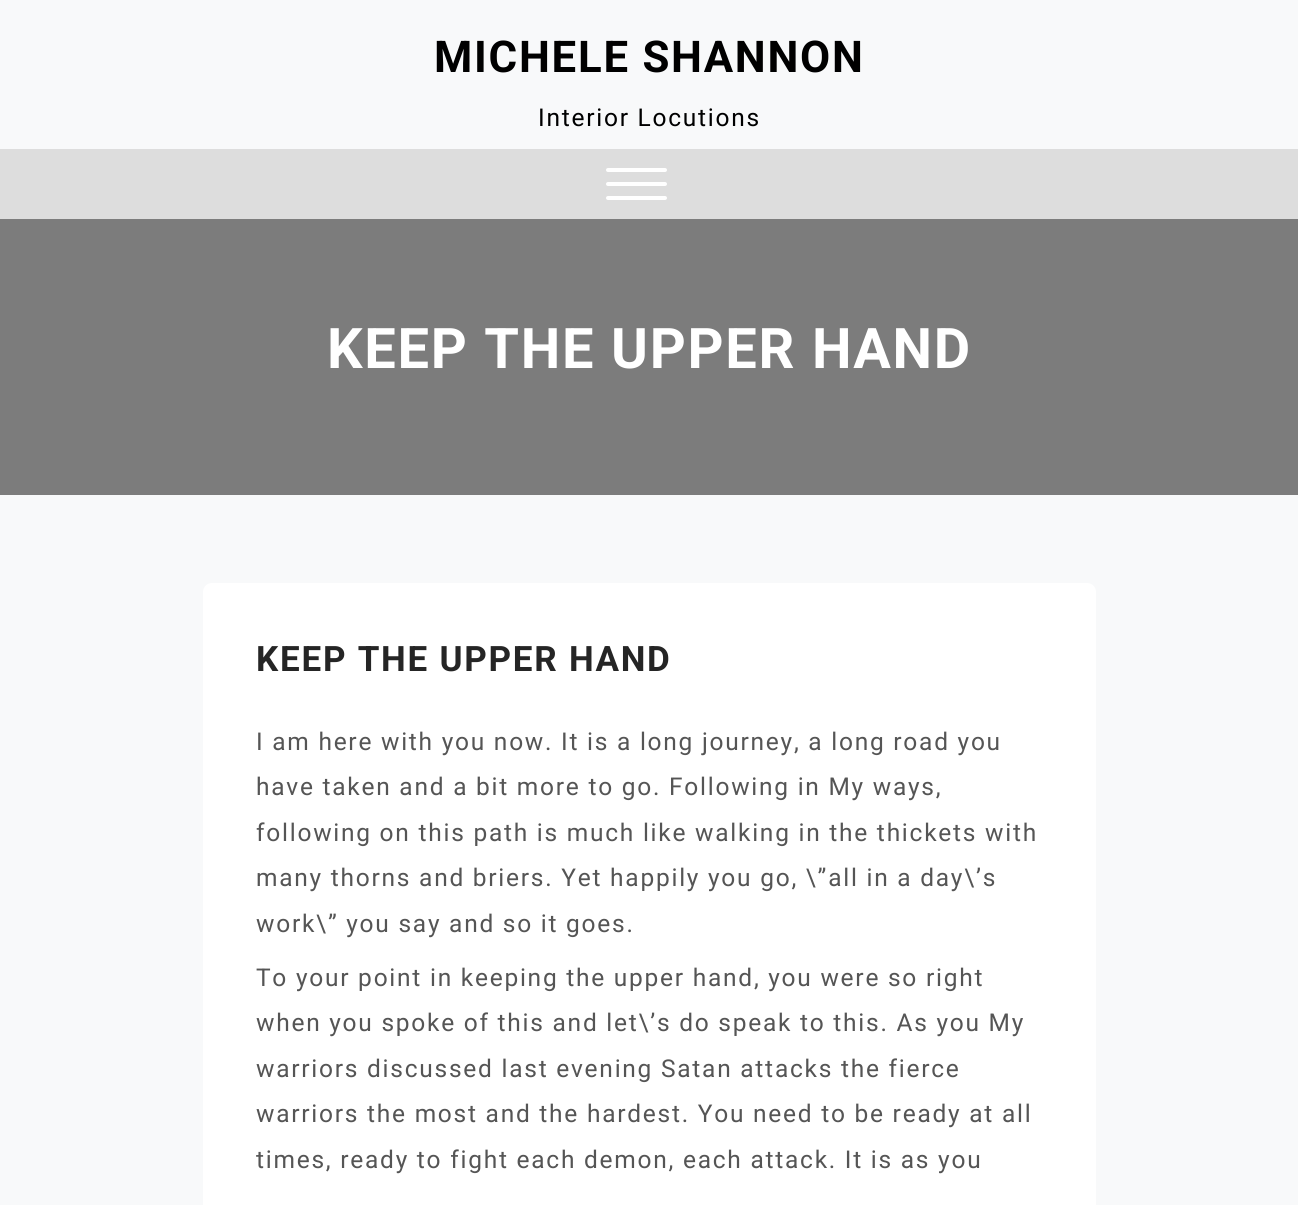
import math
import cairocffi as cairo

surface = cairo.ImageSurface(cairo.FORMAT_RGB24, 1298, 1205)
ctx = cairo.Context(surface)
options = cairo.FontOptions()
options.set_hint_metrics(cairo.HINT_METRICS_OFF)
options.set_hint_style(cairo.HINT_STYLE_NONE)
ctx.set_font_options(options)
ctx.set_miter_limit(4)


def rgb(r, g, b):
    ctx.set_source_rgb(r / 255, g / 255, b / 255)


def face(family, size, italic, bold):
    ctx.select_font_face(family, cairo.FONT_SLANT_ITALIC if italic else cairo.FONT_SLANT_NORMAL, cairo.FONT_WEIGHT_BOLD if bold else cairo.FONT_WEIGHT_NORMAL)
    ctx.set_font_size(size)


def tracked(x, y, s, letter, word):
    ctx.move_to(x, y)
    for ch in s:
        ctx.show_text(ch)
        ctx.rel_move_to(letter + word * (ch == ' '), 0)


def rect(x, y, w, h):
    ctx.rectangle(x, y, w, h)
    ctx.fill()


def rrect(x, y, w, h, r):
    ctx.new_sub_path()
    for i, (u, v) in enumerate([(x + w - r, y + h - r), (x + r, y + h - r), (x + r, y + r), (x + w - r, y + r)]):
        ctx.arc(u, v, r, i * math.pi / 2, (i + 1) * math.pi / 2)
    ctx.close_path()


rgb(248, 249, 250)
ctx.paint()
face('Roboto', 43.75, 0, 1)
rgb(0, 0, 0)
tracked(434, 72, 'MICHELE SHANNON', 1.75, 0)
face('Roboto', 24.5, 0, 0)
tracked(538, 126, 'Interior Locutions', 1.75, 0)
rgb(221, 221, 221)
rect(0, 149, 1298, 70)
rgb(255, 255, 255)
rrect(606, 168, 61, 4, 2)
ctx.fill()
rrect(606, 182, 61, 4, 2)
ctx.fill()
rrect(606, 196, 61, 4, 2)
ctx.fill()
rgb(124, 124, 124)
rect(0, 219, 1298, 276)
face('Roboto', 56, 0, 1)
rgb(255, 255, 255)
tracked(327, 368, 'KEEP THE UPPER HAND', 1.75, 0)
rrect(203, 583, 893, 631, 9)
ctx.fill()
face('Roboto', 35, 0, 1)
rgb(37, 37, 37)
tracked(256, 671, 'KEEP THE UPPER HAND', 1.75, 0)
face('Roboto', 24.5, 0, 0)
rgb(85, 85, 85)
tracked(256, 750, 'I am here with you now. It is a long journey, a long road you', 1.75, 0)
tracked(256, 795, 'have taken and a bit more to go. Following in My ways,', 1.75, 0)
tracked(256, 841, 'following on this path is much like walking in the thickets with', 1.75, 0)
tracked(256, 886, 'many thorns and briers. Yet happily you go, \\”all in a day\\’s', 1.75, 0)
tracked(256, 932, 'work\\” you say and so it goes.', 1.75, 0)
tracked(256, 986, 'To your point in keeping the upper hand, you were so right', 1.75, 0)
tracked(256, 1031, 'when you spoke of this and let\\’s do speak to this. As you My', 1.75, 0)
tracked(256, 1077, 'warriors discussed last evening Satan attacks the fierce', 1.75, 0)
tracked(256, 1122, 'warriors the most and the hardest. You need to be ready at all', 1.75, 0)
tracked(256, 1168, 'times, ready to fight each demon, each attack. It is as you', 1.75, 0)
surface.write_to_png('render.png')
